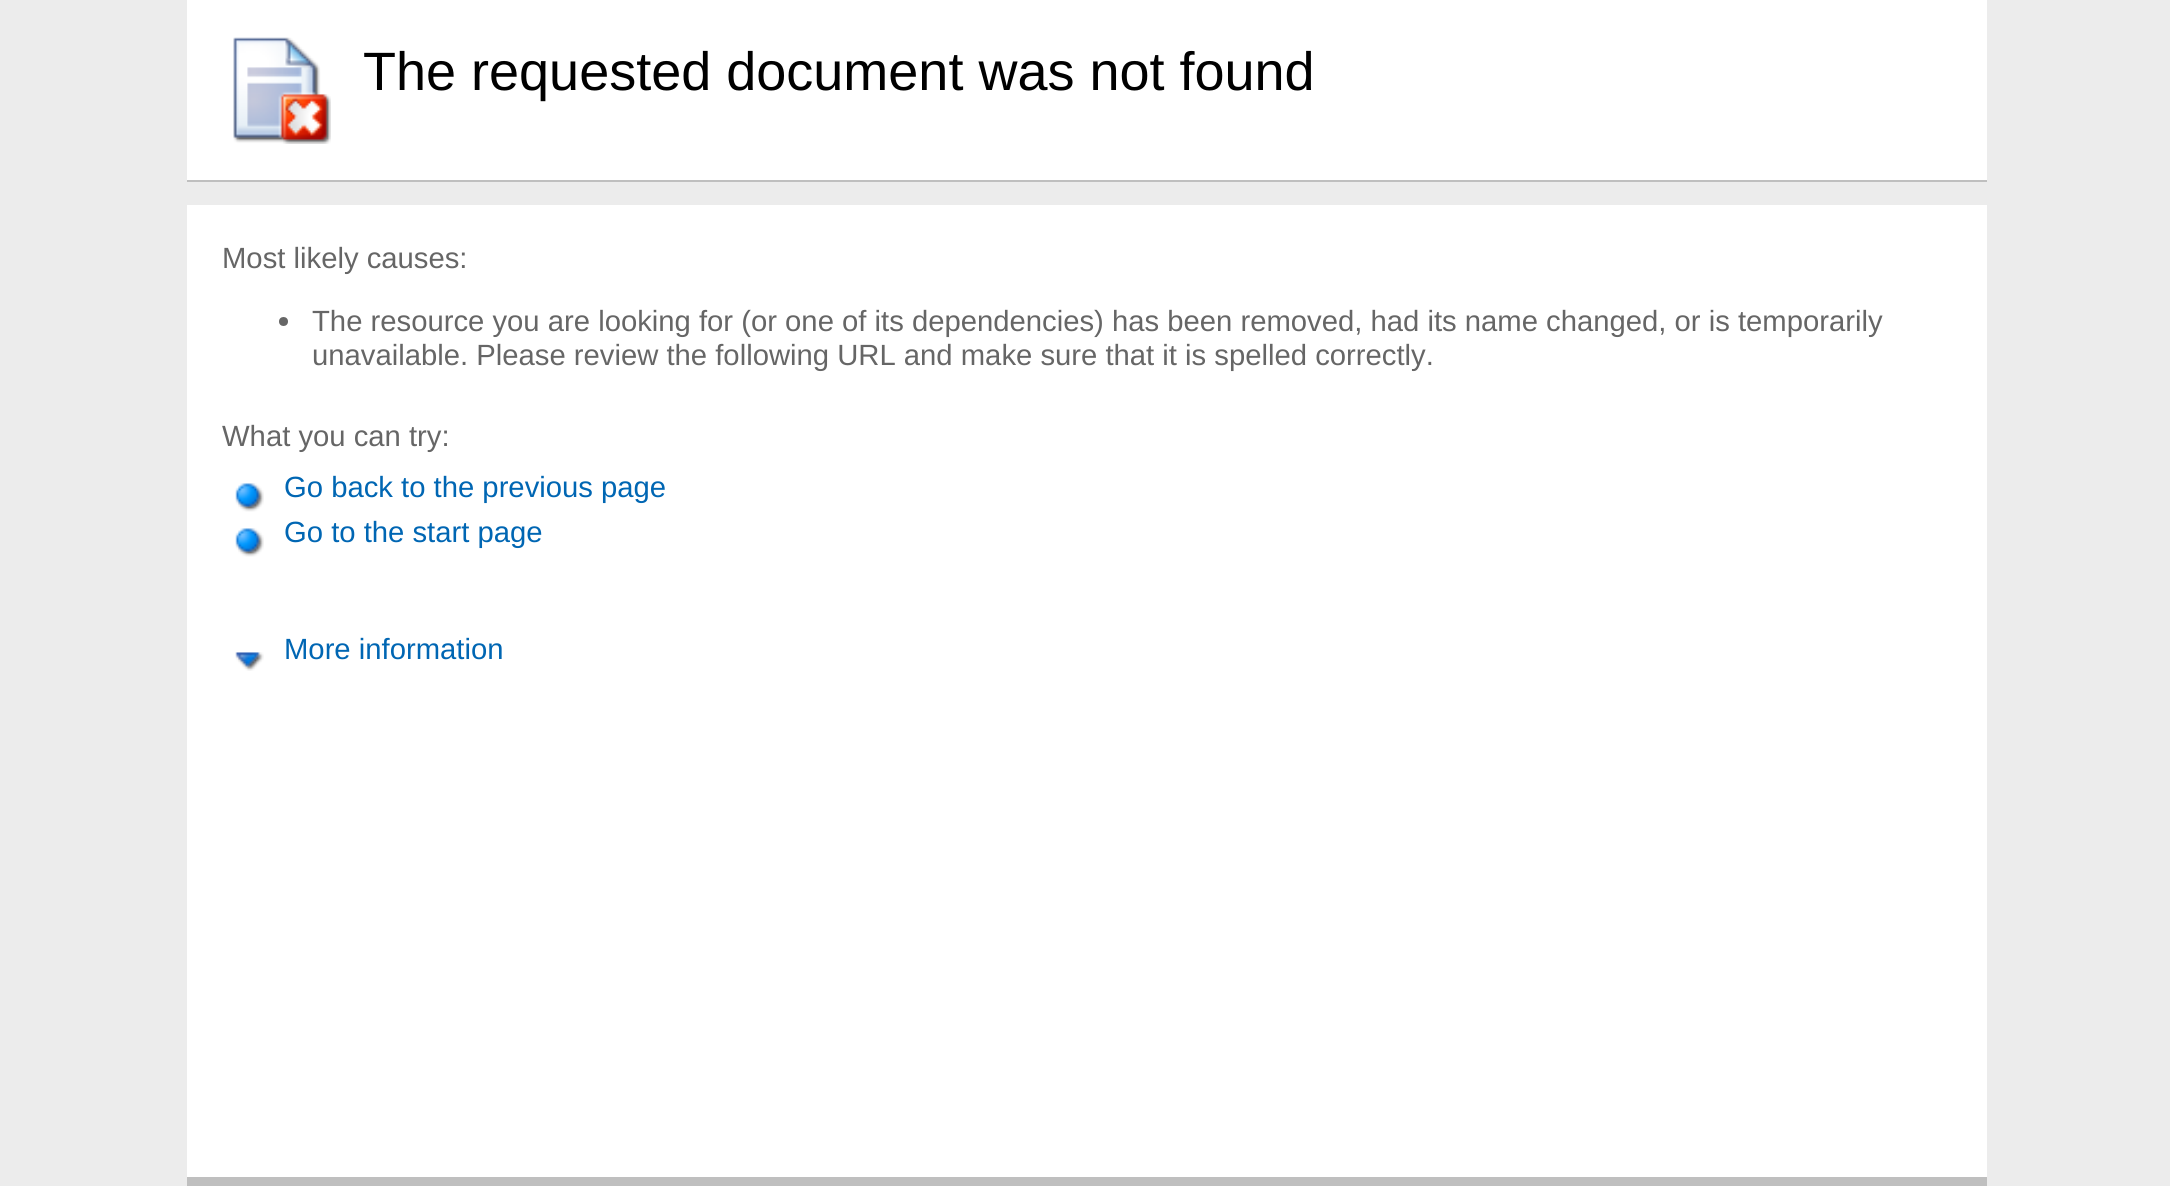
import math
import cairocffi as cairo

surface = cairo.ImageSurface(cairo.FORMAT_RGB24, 2170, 1186)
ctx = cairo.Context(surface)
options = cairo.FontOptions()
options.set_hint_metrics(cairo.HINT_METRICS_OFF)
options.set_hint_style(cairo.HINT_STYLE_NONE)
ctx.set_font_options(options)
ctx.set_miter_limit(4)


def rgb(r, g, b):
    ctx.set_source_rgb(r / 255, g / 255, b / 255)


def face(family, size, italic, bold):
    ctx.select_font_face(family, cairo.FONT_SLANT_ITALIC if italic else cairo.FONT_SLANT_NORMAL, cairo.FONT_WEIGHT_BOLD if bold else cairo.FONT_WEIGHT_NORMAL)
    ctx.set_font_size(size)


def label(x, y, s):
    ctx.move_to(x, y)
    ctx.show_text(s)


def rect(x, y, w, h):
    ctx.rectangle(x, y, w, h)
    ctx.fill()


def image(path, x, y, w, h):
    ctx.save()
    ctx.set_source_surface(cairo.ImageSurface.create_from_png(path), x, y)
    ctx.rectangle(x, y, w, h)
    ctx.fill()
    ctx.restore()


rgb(236, 236, 236)
ctx.paint()
rgb(255, 255, 255)
rect(187, 0, 1800, 180)
rgb(191, 191, 191)
rect(187, 180, 1800, 2)
image('image0.png', 233, 37, 98, 107)
face('Liberation Sans', 54, 0, 0)
rgb(0, 0, 0)
label(363, 90, 'The requested document was not found')
rgb(255, 255, 255)
rect(187, 205, 1800, 972)
rgb(191, 191, 191)
rect(187, 1177, 1800, 9)
face('Liberation Sans', 29.25, 0, 0)
rgb(102, 102, 102)
label(222, 268, 'Most likely causes:')
ctx.new_path()
ctx.arc(283.5, 321.5, 4.5, 0, 2 * math.pi)
ctx.fill()
label(312, 331, 'The resource you are looking for (or one of its dependencies) has been removed, had its name changed, or is temporarily')
label(312, 365, 'unavailable. Please review the following URL and make sure that it is spelled correctly.')
label(222, 446, 'What you can try:')
image('image1.png', 235, 483, 29, 29)
rgb(0, 102, 179)
label(284, 497, 'Go back to the previous page')
image('image1.png', 235, 528, 29, 29)
label(284, 542, 'Go to the start page')
image('image2.png', 235, 652, 29, 19)
label(284, 659, 'More information')
surface.write_to_png('render.png')
